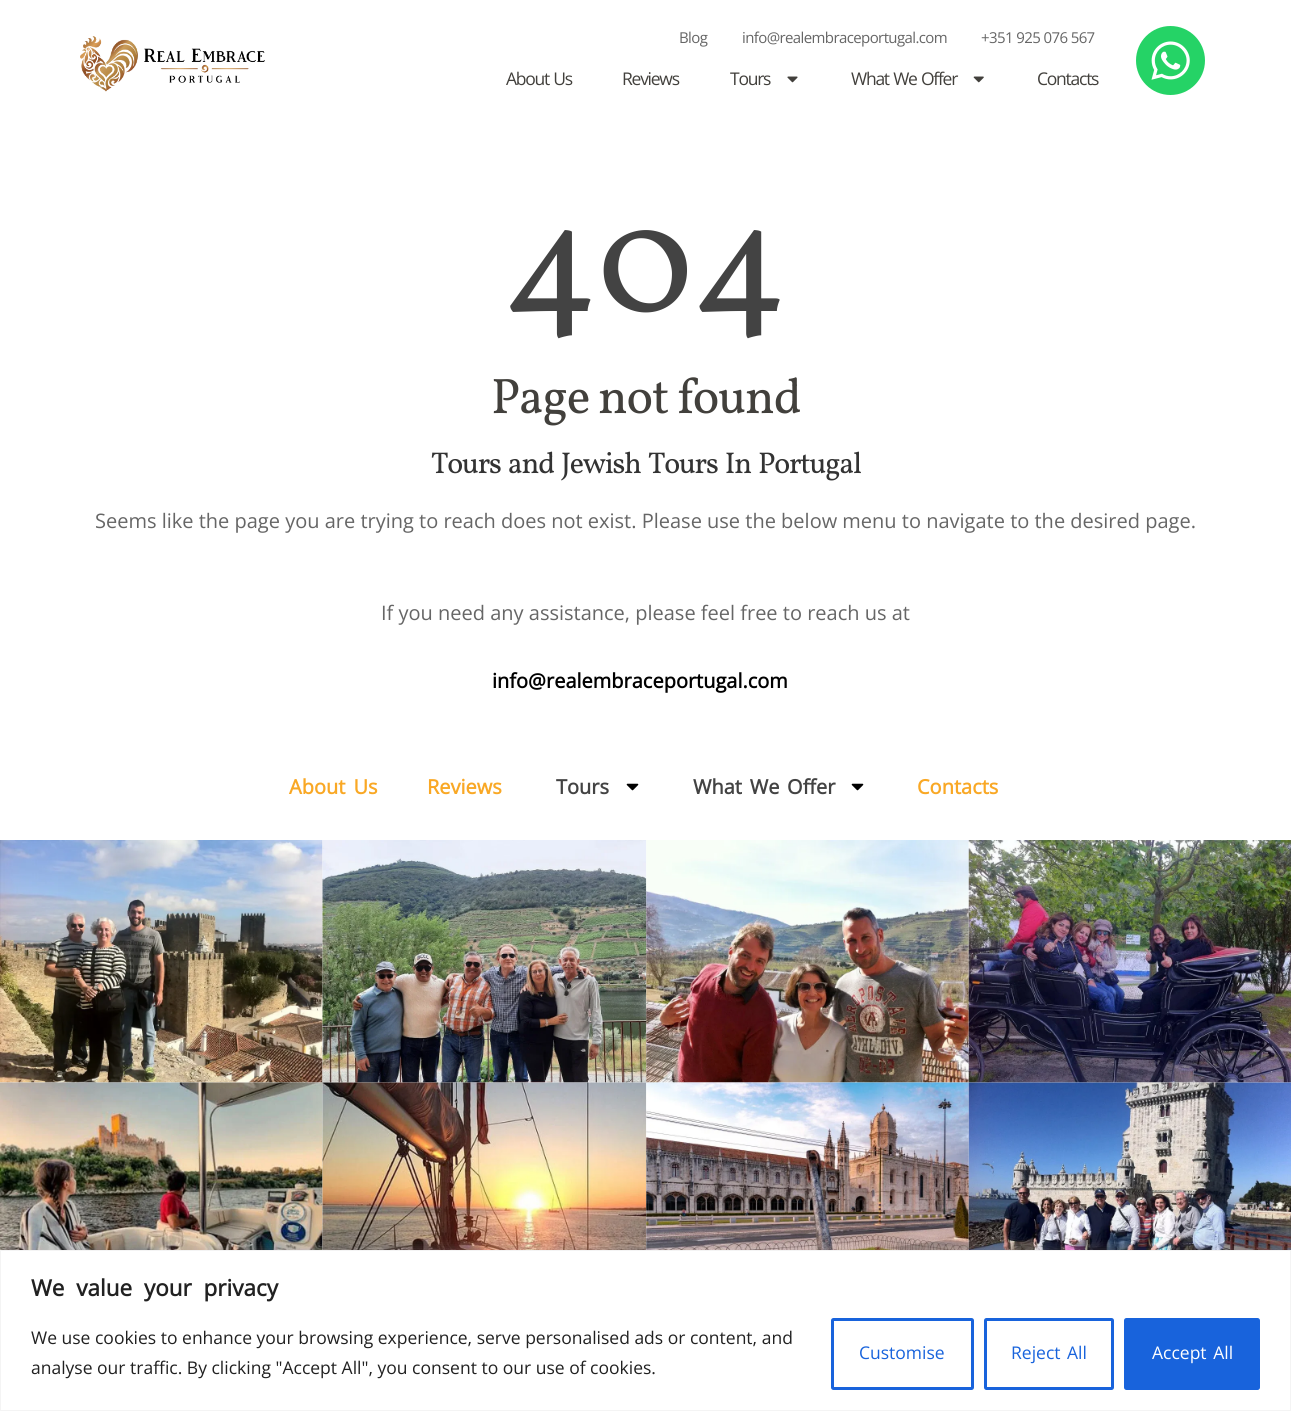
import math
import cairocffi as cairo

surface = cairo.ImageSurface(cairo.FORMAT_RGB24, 1291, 1411)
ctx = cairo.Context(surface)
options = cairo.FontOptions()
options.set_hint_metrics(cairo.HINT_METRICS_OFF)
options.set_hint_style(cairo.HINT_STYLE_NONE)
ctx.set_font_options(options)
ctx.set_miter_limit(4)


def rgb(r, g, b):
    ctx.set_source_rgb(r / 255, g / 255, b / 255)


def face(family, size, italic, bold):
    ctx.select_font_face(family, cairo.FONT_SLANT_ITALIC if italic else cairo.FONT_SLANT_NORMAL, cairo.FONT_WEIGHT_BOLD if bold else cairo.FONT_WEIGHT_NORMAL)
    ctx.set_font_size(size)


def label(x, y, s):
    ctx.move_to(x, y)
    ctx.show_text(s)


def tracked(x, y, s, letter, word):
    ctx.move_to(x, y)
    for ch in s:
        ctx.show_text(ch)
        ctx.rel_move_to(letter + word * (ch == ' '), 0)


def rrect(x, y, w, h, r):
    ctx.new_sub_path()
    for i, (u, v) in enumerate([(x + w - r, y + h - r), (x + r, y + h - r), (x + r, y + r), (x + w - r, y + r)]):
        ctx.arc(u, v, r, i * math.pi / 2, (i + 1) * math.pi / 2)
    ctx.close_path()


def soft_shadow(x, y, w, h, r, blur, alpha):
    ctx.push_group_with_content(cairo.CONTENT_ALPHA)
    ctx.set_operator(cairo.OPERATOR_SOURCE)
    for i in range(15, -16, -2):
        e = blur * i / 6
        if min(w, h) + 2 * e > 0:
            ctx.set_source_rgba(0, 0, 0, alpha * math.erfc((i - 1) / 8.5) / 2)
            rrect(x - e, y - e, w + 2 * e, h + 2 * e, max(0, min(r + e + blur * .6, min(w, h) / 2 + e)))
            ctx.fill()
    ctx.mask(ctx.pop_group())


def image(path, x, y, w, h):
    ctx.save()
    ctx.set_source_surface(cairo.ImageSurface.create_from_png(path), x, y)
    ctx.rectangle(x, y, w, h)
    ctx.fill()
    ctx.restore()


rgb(255, 255, 255)
ctx.paint()
image('image0.png', 80, 36, 185, 56)
face('Open Sans', 15, 0, 0)
rgb(102, 102, 102)
tracked(679, 43, 'Blog', -0.6, 0)
tracked(742, 43, 'info@realembraceportugal.com', -0.6, 0)
tracked(981, 43, '+351 925 076 567', -0.6, 0)
face('Open Sans', 17.5, 0, 0)
rgb(66, 64, 60)
tracked(506, 85, 'About Us', -1.25, 1)
tracked(622, 85, 'Reviews', -1.25, 0)
tracked(730, 85, 'Tours', -1.25, 0)
image('image1.png', 787, 76, 11, 7)
tracked(851, 85, 'What We Offer', -1.25, 1)
image('image2.png', 973, 76, 11, 7)
tracked(1037, 85, 'Contacts', -1.25, 0)
rgb(37, 211, 102)
ctx.new_path()
ctx.arc(1170.5, 60.5, 34.5, 0, 2 * math.pi)
ctx.fill()
image('image3.png', 1151, 41, 39, 39)
face('Vollkorn', 160, 0, 0)
rgb(67, 67, 67)
tracked(503, 311, '404', -1.25, 0)
face('Vollkorn', 50, 0, 0)
rgb(66, 64, 60)
tracked(491, 413, 'Page not found', -1.25, 0)
face('Vollkorn', 30, 0, 0)
rgb(51, 51, 51)
tracked(431, 473, 'Tours and Jewish Tours In Portugal', -1.25, 2.5)
face('Open Sans', 20, 0, 0)
rgb(102, 102, 102)
label(95, 528, 'Seems like the page you are trying to reach does not exist. Please use the below menu to navigate to the desired page.')
label(381, 620, 'If you need any assistance, please feel free to reach us at')
face('Open Sans', 20, 0, 1)
rgb(0, 0, 0)
label(492, 688, 'info@realembraceportugal.com')
rgb(249, 168, 37)
tracked(289, 794, 'About Us', 0, 3)
label(427, 794, 'Reviews')
rgb(67, 67, 67)
label(556, 794, 'Tours')
image('image4.png', 626, 783, 13, 8)
tracked(693, 794, 'What We Offer', 0, 2.5)
image('image4.png', 851, 783, 13, 8)
rgb(249, 168, 37)
label(917, 794, 'Contacts')
image('image5.png', 0, 840, 323, 243)
image('image6.png', 322, 840, 325, 243)
image('image7.png', 646, 840, 323, 243)
image('image8.png', 968, 840, 323, 243)
image('image9.png', 0, 1082, 323, 168)
image('image10.png', 322, 1082, 325, 168)
image('image11.png', 646, 1082, 323, 168)
image('image12.png', 968, 1082, 323, 168)
rgb(172, 171, 171)
soft_shadow(0, 1249, 1291, 161, 0, 6, 0.3)
rgb(255, 255, 255)
ctx.rectangle(0.5, 1250.5, 1290, 160)
ctx.fill_preserve()
rgb(244, 244, 244)
ctx.set_line_width(1)
ctx.stroke()
face('Open Sans', 22.5, 0, 1)
rgb(33, 33, 33)
tracked(31, 1296, 'We value your privacy', 0, 6)
face('Open Sans', 17.5, 0, 0)
label(31, 1344, 'We use cookies to enhance your browsing experience, serve personalised ads or content, and')
label(31, 1374, 'analyse our traffic. By clicking "Accept All", you consent to our use of cookies.')
rrect(832.5, 1319.5, 140, 69, 1)
rgb(24, 99, 220)
ctx.set_line_width(3)
ctx.stroke()
label(859, 1359, 'Customise')
rrect(985.5, 1319.5, 127, 69, 1)
ctx.stroke()
tracked(1011, 1359, 'Reject All', 0, 2)
rrect(1125.5, 1319.5, 133, 69, 1)
ctx.fill_preserve()
ctx.stroke()
rgb(255, 255, 255)
tracked(1152, 1359, 'Accept All', 0, 2)
surface.write_to_png('render.png')
